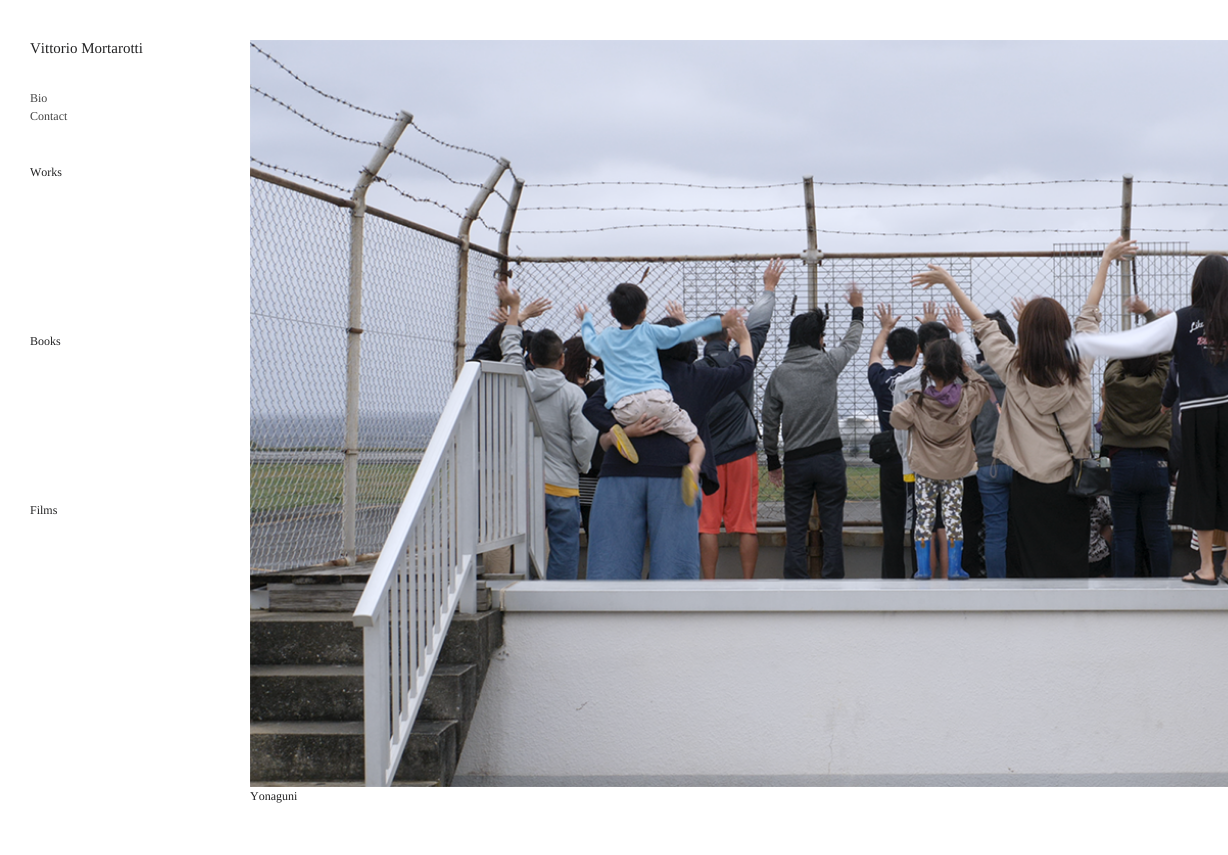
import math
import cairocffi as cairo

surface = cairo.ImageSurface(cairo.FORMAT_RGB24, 1228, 855)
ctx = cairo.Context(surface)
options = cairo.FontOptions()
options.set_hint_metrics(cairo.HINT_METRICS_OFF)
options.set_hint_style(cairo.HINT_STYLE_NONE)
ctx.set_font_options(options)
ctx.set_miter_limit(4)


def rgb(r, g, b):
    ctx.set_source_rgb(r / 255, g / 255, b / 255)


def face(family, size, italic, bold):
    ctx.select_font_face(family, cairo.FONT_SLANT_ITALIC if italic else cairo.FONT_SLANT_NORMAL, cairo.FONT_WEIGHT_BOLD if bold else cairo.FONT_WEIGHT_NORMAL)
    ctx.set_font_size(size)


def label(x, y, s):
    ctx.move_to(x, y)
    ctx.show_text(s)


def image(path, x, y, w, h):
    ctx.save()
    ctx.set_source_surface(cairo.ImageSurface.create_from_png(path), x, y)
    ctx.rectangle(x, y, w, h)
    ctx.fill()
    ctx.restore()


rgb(255, 255, 255)
ctx.paint()
face('Liberation Serif', 15, 0, 0)
rgb(34, 34, 35)
label(30, 53, 'Vittorio Mortarotti')
face('Liberation Serif', 12, 0, 0)
rgb(68, 68, 68)
label(30, 102, 'Bio')
label(30, 120, 'Contact')
rgb(34, 34, 35)
label(30, 176, 'Works')
label(30, 345, 'Books')
label(30, 514, 'Films')
image('image0.png', 250, 40, 978, 747)
label(250, 800, 'Yonaguni')
surface.write_to_png('render.png')
